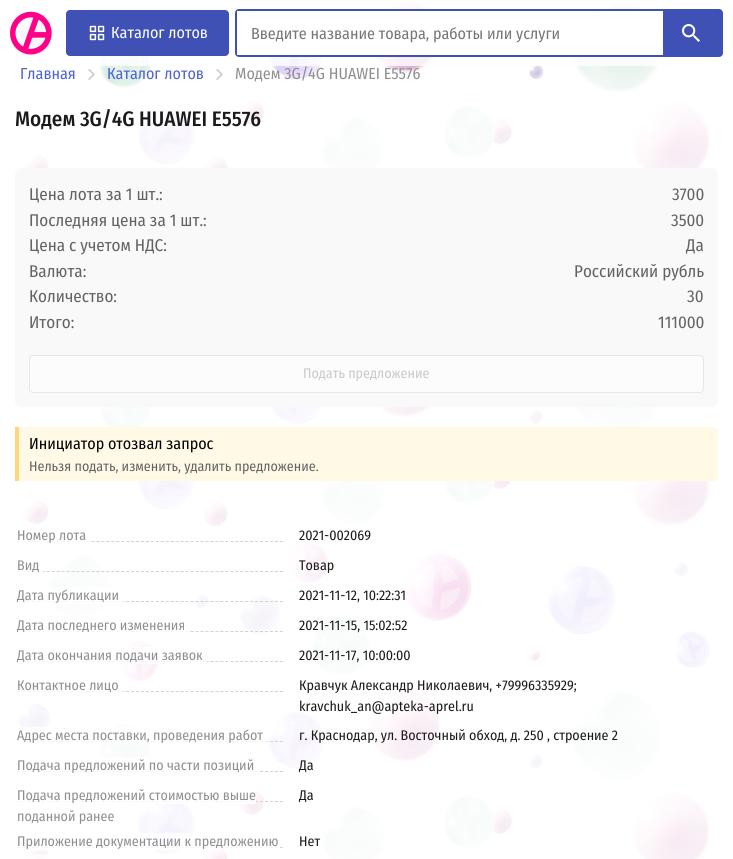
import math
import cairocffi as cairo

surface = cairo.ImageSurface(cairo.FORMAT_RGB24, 733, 859)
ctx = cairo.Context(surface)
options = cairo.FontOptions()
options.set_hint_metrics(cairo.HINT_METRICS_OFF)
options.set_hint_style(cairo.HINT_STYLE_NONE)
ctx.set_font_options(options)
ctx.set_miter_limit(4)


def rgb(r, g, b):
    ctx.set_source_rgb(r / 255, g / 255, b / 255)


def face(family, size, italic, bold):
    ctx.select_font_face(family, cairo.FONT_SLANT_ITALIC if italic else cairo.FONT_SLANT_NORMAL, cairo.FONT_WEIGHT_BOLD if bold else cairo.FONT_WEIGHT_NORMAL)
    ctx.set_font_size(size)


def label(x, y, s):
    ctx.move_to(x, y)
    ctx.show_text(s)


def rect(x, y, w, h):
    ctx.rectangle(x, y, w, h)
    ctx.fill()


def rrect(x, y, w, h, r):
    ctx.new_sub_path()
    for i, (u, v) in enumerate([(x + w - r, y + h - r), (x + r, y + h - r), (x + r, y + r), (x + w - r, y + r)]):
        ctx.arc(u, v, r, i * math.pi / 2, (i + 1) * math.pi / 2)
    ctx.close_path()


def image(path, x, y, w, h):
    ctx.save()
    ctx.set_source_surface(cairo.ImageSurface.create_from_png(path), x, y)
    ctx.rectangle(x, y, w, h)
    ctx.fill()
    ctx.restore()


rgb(255, 255, 255)
ctx.paint()
image('image0.png', 18, 0, 693, 859)
ctx.set_source_rgba(1, 1, 1, 0.8)
rect(18, 0, 644, 66)
image('image1.png', 10, 11, 42, 44)
rgb(63, 81, 181)
rrect(66.5, 10.5, 162, 45, 3.5)
ctx.fill_preserve()
ctx.set_line_width(1)
ctx.stroke()
image('image2.png', 89, 25, 16, 16)
face('Fira Sans Condensed', 16, 0, 0)
rgb(255, 255, 255)
label(111, 38, 'Каталог лотов')
rrect(236, 10, 486, 46, 3)
rgb(63, 81, 181)
ctx.set_line_width(2)
ctx.stroke()
rgb(255, 255, 255)
rect(237, 11, 422, 44)
rgb(117, 117, 117)
label(251, 39, 'Введите название товара, работы или услуги')
rgb(63, 81, 181)
rect(663, 11, 58, 44)
image('image3.png', 682, 24, 18, 18)
rgb(78, 98, 209)
label(20, 79, 'Главная')
image('image4.png', 88, 69, 7, 11)
label(107, 79, 'Каталог лотов')
image('image4.png', 216, 69, 7, 11)
rgb(142, 142, 142)
label(235, 79, 'Модем 3G/4G HUAWEI E5576')
ctx.new_path()
ctx.move_to(17, 541.5)
ctx.line_to(283, 541.5)
rgb(30, 30, 30)
ctx.set_line_width(1)
ctx.set_dash([3, 1.96])
ctx.stroke()
ctx.new_path()
ctx.move_to(17, 571.5)
ctx.line_to(283, 571.5)
ctx.stroke()
ctx.new_path()
ctx.move_to(17, 601.5)
ctx.line_to(283, 601.5)
ctx.stroke()
ctx.new_path()
ctx.move_to(17, 631.5)
ctx.line_to(283, 631.5)
ctx.stroke()
ctx.new_path()
ctx.move_to(17, 661.5)
ctx.line_to(283, 661.5)
ctx.stroke()
ctx.new_path()
ctx.move_to(17, 691.5)
ctx.line_to(283, 691.5)
ctx.stroke()
ctx.new_path()
ctx.move_to(17, 741.5)
ctx.line_to(283, 741.5)
ctx.stroke()
ctx.new_path()
ctx.move_to(17, 771.5)
ctx.line_to(283, 771.5)
ctx.stroke()
ctx.new_path()
ctx.move_to(17, 801.5)
ctx.line_to(283, 801.5)
ctx.stroke()
ctx.new_path()
ctx.move_to(17, 847.5)
ctx.line_to(283, 847.5)
ctx.stroke()
ctx.set_source_rgba(1, 1, 1, 0.8)
rrect(0, 96, 733, 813, 50)
ctx.fill()
face('Fira Sans Condensed Medium', 21, 0, 0)
rgb(26, 26, 26)
label(15, 126, 'Модем 3G/4G HUAWEI E5576')
rgb(249, 249, 249)
rrect(15, 168, 703, 239, 6)
ctx.fill()
face('Fira Sans Condensed', 17, 0, 0)
rgb(99, 99, 99)
label(29, 200, 'Цена лота за 1 шт.:')
label(672, 200, '3700')
label(29, 226, 'Последняя цена за 1 шт.:')
label(671, 226, '3500')
label(29, 251, 'Цена с учетом НДС:')
label(686, 251, 'Да')
label(29, 277, 'Валюта:')
label(574, 277, 'Российский рубль')
label(29, 302, 'Количество:')
label(687, 302, '30')
label(29, 328, 'Итого:')
label(658, 328, '111000')
rgb(252, 252, 252)
rrect(29.5, 355.5, 674, 37, 3.5)
ctx.fill_preserve()
rgb(231, 231, 234)
ctx.set_dash([])
ctx.stroke()
face('Fira Sans Condensed', 14, 0, 0)
rgb(201, 201, 201)
label(303, 378, 'Подать предложение')
rgb(255, 249, 230)
ctx.new_path()
ctx.move_to(15, 427)
ctx.line_to(714, 427)
ctx.curve_to(716, 427, 718, 429, 718, 431)
ctx.line_to(718, 477)
ctx.curve_to(718, 479, 716, 481, 714, 481)
ctx.line_to(15, 481)
ctx.close_path()
ctx.fill()
rgb(255, 215, 122)
rect(15, 427, 4, 54)
face('Fira Sans Condensed', 16, 0, 0)
rgb(0, 0, 0)
label(29, 449, 'Инициатор отозвал запрос')
face('Fira Sans Condensed', 14, 0, 0)
rgb(99, 99, 99)
label(29, 471, 'Нельзя подать, изменить, удалить предложение.')
ctx.set_source_rgba(1, 1, 1, 0.8)
rect(17, 541, 73, 1)
rgb(142, 142, 142)
label(17, 540, 'Номер лота')
rgb(26, 26, 26)
label(299, 540, '2021-002069')
ctx.set_source_rgba(1, 1, 1, 0.8)
rect(17, 571, 26, 1)
rgb(142, 142, 142)
label(17, 570, 'Вид')
rgb(26, 26, 26)
label(299, 570, 'Товар')
ctx.set_source_rgba(1, 1, 1, 0.8)
rect(17, 587, 106, 17)
rgb(142, 142, 142)
label(17, 600, 'Дата публикации')
rgb(26, 26, 26)
label(299, 600, '2021-11-12, 10:22:31')
ctx.set_source_rgba(1, 1, 1, 0.8)
rect(17, 631, 172, 1)
rgb(142, 142, 142)
label(17, 630, 'Дата последнего изменения')
rgb(26, 26, 26)
label(299, 630, '2021-11-15, 15:02:52')
ctx.set_source_rgba(1, 1, 1, 0.8)
rect(17, 647, 190, 17)
rgb(142, 142, 142)
label(17, 660, 'Дата окончания подачи заявок')
rgb(26, 26, 26)
label(299, 660, '2021-11-17, 10:00:00')
ctx.set_source_rgba(1, 1, 1, 0.8)
rect(17, 691, 106, 1)
rgb(142, 142, 142)
label(17, 690, 'Контактное лицо')
rgb(26, 26, 26)
label(299, 690, 'Кравчук Александр Николаевич, +79996335929;')
label(299, 711, 'kravchuk_an@apteka-aprel.ru')
ctx.set_source_rgba(1, 1, 1, 0.8)
rect(17, 727, 250, 17)
rgb(142, 142, 142)
label(17, 740, 'Адрес места поставки, проведения работ')
rgb(26, 26, 26)
label(299, 740, 'г. Краснодар, ул. Восточный обход, д. 250 , строение 2')
ctx.set_source_rgba(1, 1, 1, 0.8)
rect(17, 757, 241, 17)
rgb(142, 142, 142)
label(17, 770, 'Подача предложений по части позиций')
rgb(26, 26, 26)
label(299, 770, 'Да')
ctx.set_source_rgba(1, 1, 1, 0.8)
rect(17, 790, 239, 14)
rgb(142, 142, 142)
label(17, 800, 'Подача предложений стоимостью выше')
label(17, 821, 'поданной ранее')
rgb(26, 26, 26)
label(299, 800, 'Да')
ctx.set_source_rgba(1, 1, 1, 0.8)
rect(17, 833, 261, 17)
rgb(142, 142, 142)
label(17, 846, 'Приложение документации к предложению')
ctx.set_source_rgba(1, 1, 1, 0.8)
rect(17, 854, 32, 5)
rgb(26, 26, 26)
label(299, 846, 'Нет')
surface.write_to_png('render.png')
